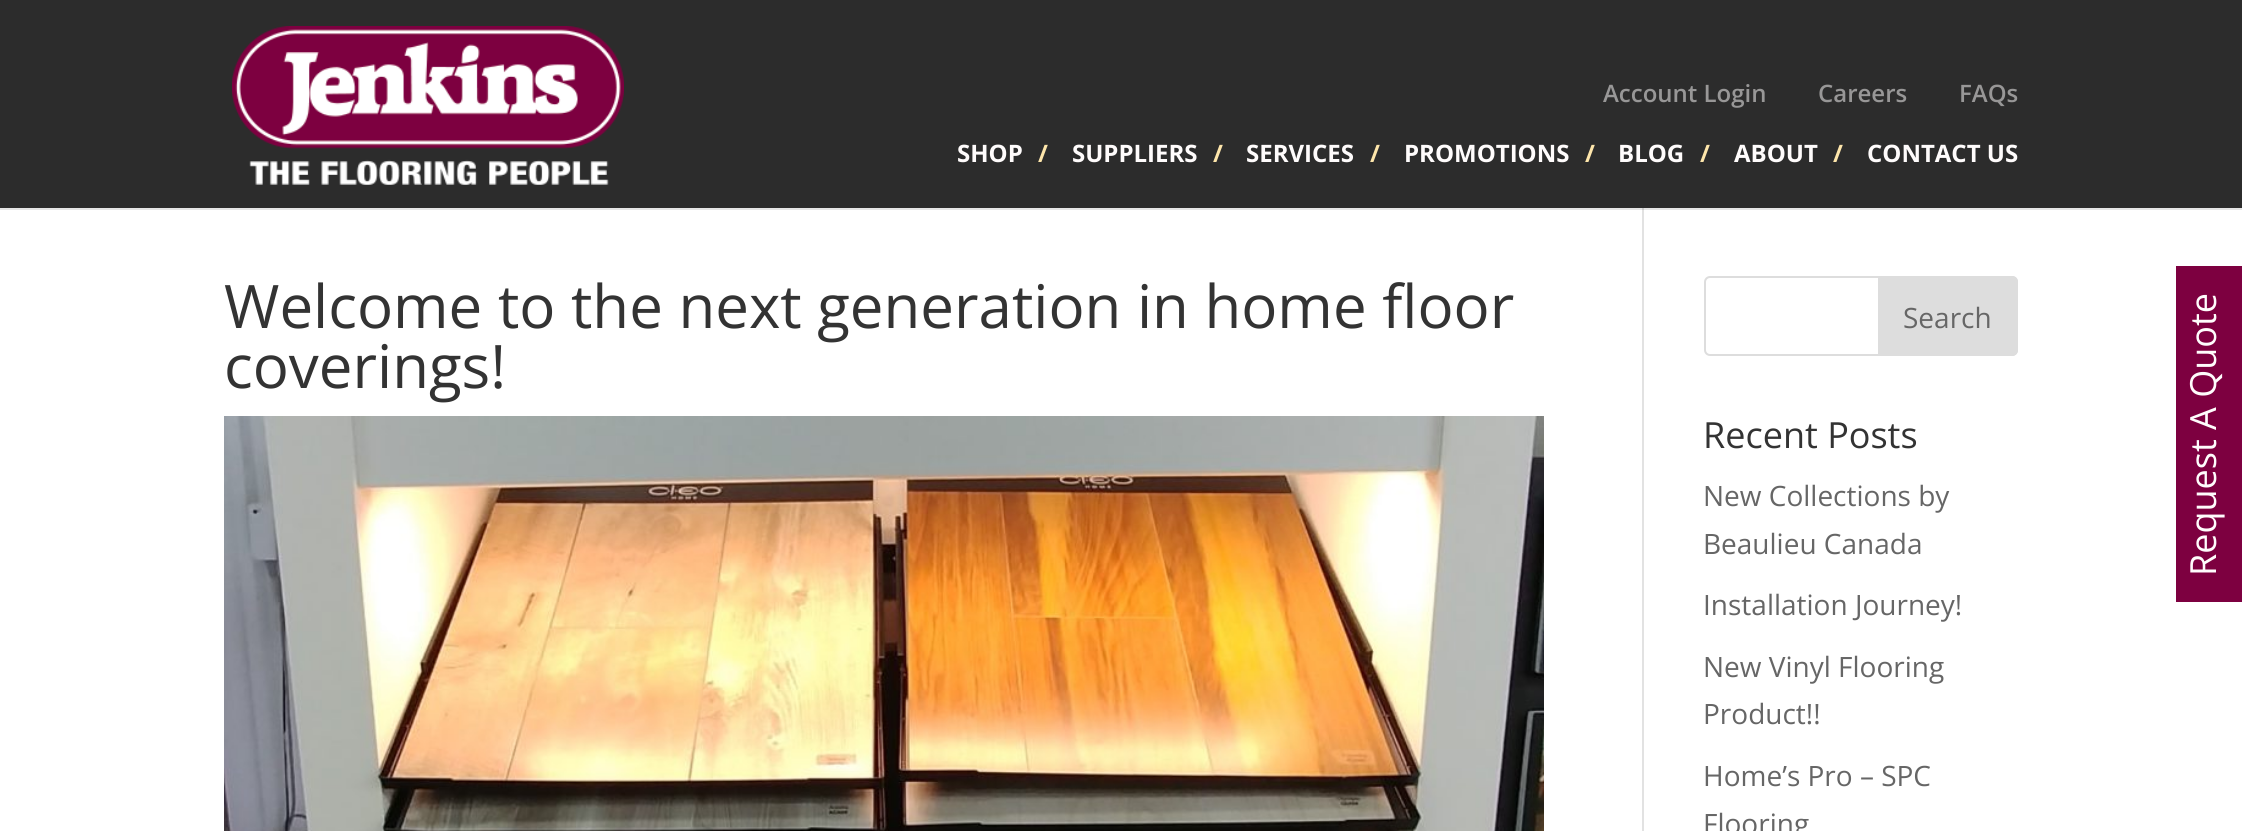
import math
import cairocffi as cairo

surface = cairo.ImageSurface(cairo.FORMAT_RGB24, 2242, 831)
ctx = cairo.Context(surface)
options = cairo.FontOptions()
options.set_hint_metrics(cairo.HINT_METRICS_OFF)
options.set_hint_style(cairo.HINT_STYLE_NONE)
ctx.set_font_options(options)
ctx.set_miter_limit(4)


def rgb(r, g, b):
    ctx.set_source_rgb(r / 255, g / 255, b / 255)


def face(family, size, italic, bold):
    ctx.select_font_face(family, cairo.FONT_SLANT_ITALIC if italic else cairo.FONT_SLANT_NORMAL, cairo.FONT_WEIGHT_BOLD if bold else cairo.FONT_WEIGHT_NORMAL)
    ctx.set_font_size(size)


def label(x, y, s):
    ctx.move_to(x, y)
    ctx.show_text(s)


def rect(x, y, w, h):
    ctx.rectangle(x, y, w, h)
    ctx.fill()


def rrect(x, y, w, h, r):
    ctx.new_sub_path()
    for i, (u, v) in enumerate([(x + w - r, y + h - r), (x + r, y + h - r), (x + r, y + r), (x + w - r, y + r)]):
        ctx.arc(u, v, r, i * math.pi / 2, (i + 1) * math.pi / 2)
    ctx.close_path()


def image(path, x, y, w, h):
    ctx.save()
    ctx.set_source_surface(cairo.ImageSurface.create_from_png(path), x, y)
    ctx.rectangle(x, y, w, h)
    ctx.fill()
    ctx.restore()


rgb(255, 255, 255)
ctx.paint()
rgb(230, 230, 230)
rect(0, 208, 2242, 2)
rgb(44, 44, 44)
rect(0, 0, 2242, 208)
image('image0.png', 232, 26, 392, 159)
face('Open Sans SemiBold', 24, 0, 0)
rgb(152, 151, 151)
label(1603, 102, 'Account Login')
label(1818, 102, 'Careers')
label(1959, 102, 'FAQs')
face('Open Sans', 24, 0, 1)
rgb(255, 252, 252)
label(957, 162, 'SHOP')
rgb(254, 230, 171)
label(1038, 162, '/')
rgb(255, 252, 252)
label(1072, 162, 'SUPPLIERS')
rgb(254, 230, 171)
label(1213, 162, '/')
rgb(255, 252, 252)
label(1246, 162, 'SERVICES')
rgb(254, 230, 171)
label(1370, 162, '/')
rgb(255, 252, 252)
label(1404, 162, 'PROMOTIONS')
rgb(254, 230, 171)
label(1585, 162, '/')
rgb(255, 252, 252)
label(1618, 162, 'BLOG')
rgb(254, 230, 171)
label(1700, 162, '/')
rgb(255, 252, 252)
label(1734, 162, 'ABOUT')
rgb(254, 230, 171)
label(1833, 162, '/')
rgb(255, 252, 252)
label(1867, 162, 'CONTACT US')
rgb(226, 226, 226)
rect(1642, 210, 2, 621)
rgb(203, 203, 203)
rect(1642, 208, 2, 2)
face('Open Sans', 60, 0, 0)
rgb(51, 51, 51)
label(224, 328, 'Welcome to the next generation in home floor')
label(224, 388, 'coverings!')
image('image1.png', 224, 416, 1320, 415)
rrect(1705, 277, 312, 78, 5)
rgb(221, 221, 221)
ctx.stroke()
ctx.new_path()
ctx.move_to(1879, 277)
ctx.line_to(2012, 277)
ctx.curve_to(2015, 277, 2017, 279, 2017, 282)
ctx.line_to(2017, 350)
ctx.curve_to(2017, 353, 2015, 355, 2012, 355)
ctx.line_to(1879, 355)
ctx.close_path()
ctx.fill_preserve()
ctx.stroke()
face('Open Sans', 28, 0, 0)
rgb(102, 102, 102)
label(1903, 328, 'Search')
face('Open Sans', 36, 0, 0)
rgb(51, 51, 51)
label(1703, 448, 'Recent Posts')
face('Open Sans', 28, 0, 0)
rgb(102, 102, 102)
label(1703, 506, 'New Collections by')
label(1703, 554, 'Beaulieu Canada')
label(1703, 615, 'Installation Journey!')
label(1703, 677, 'New Vinyl Flooring')
label(1703, 724, 'Product!!')
label(1703, 786, 'Home’s Pro – SPC')
label(1703, 834, 'Flooring')
rgb(125, 0, 64)
rect(2176, 266, 66, 336)
face('Open Sans', 36, 0, 0)
rgb(255, 252, 252)
ctx.save()
ctx.translate(2216, 576)
ctx.rotate(-90 * math.pi / 180)
label(0, 0, 'Request A Quote')
ctx.restore()
surface.write_to_png('render.png')
